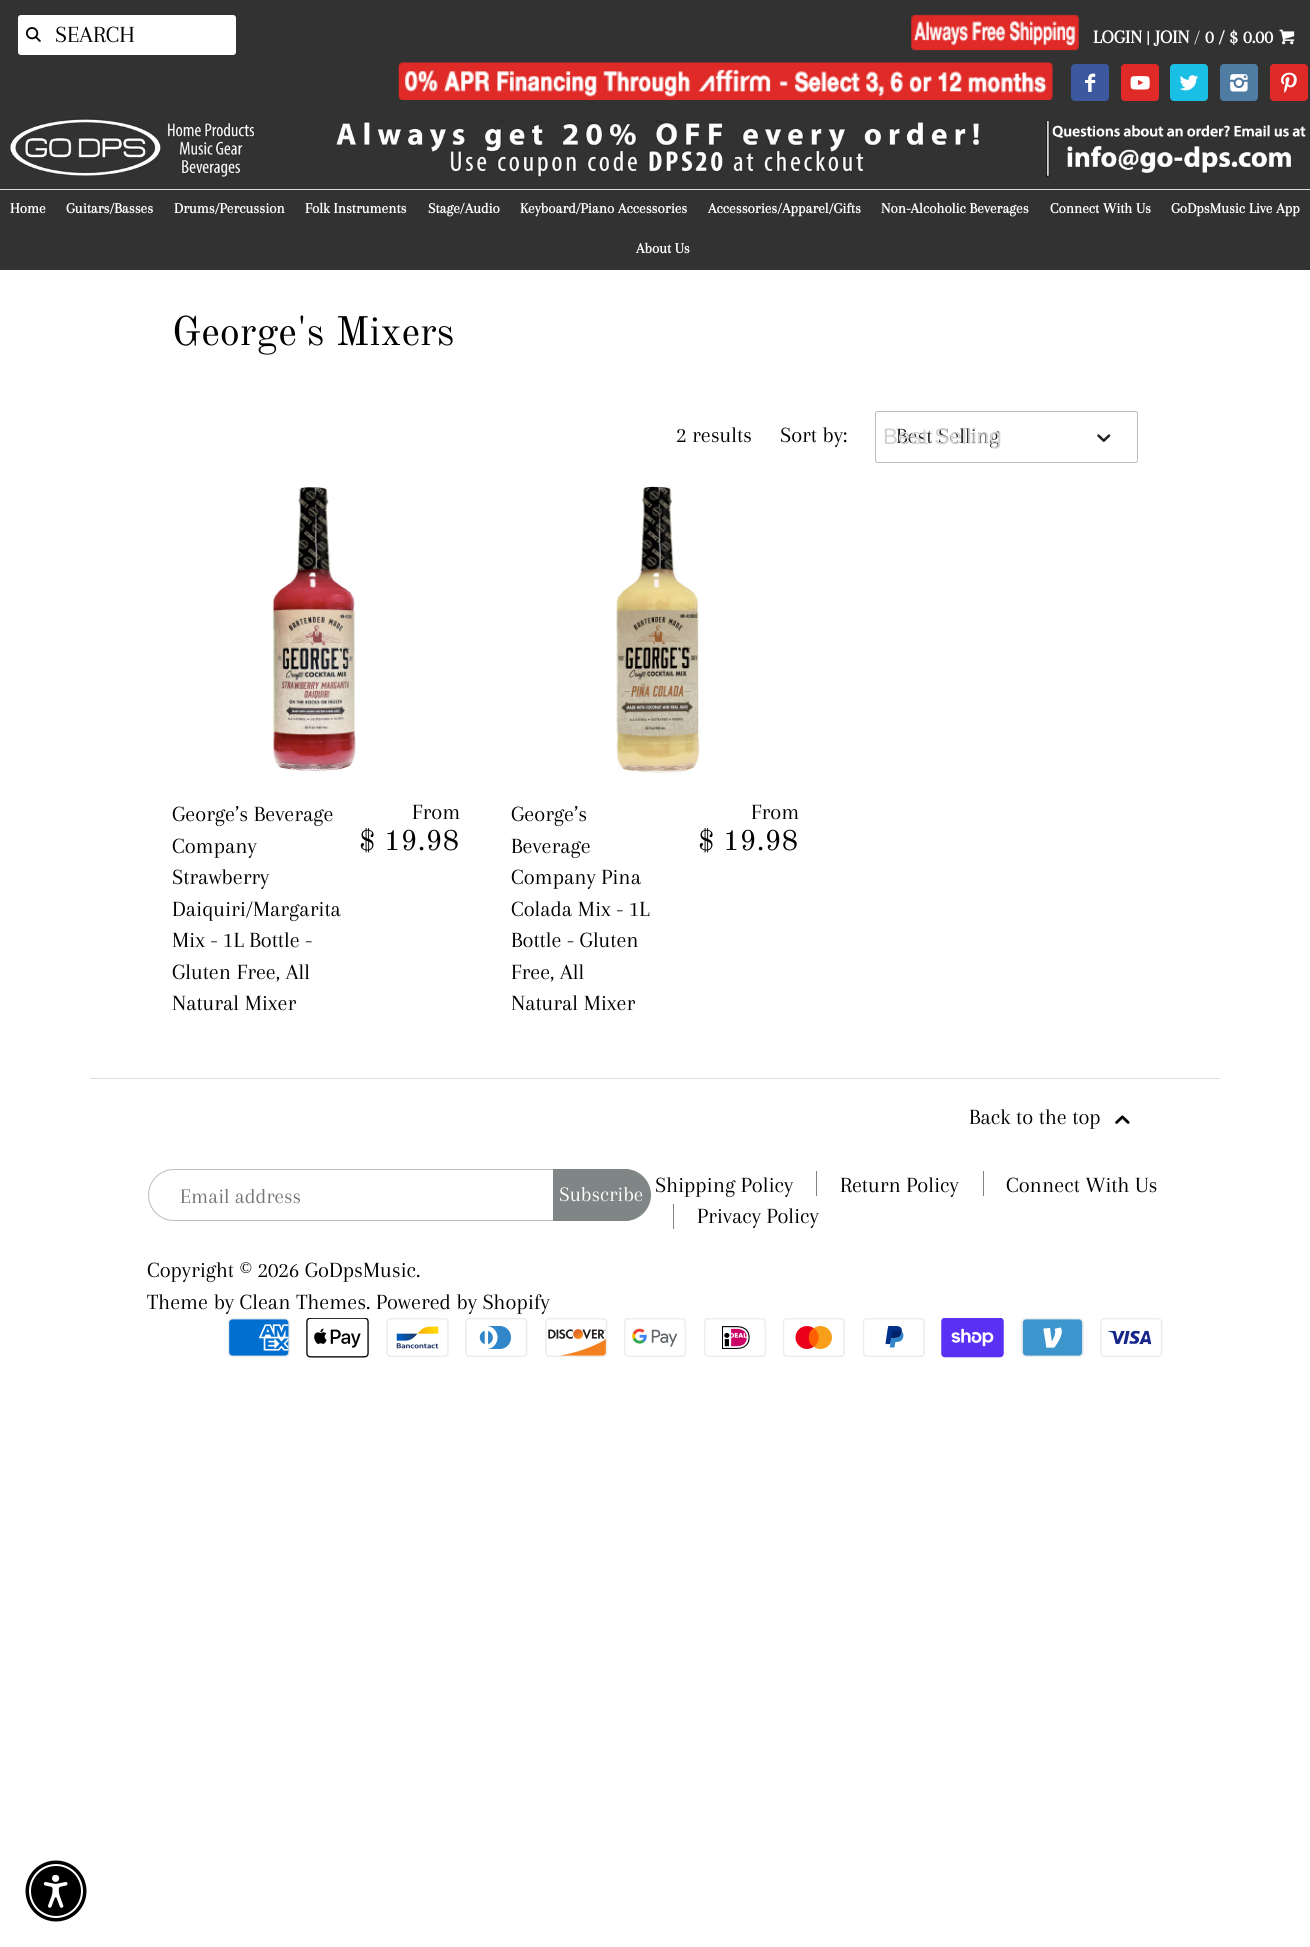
import math
import cairocffi as cairo

surface = cairo.ImageSurface(cairo.FORMAT_RGB24, 1310, 1947)
ctx = cairo.Context(surface)
options = cairo.FontOptions()
options.set_hint_metrics(cairo.HINT_METRICS_OFF)
options.set_hint_style(cairo.HINT_STYLE_NONE)
ctx.set_font_options(options)
ctx.set_miter_limit(4)


def rgb(r, g, b):
    ctx.set_source_rgb(r / 255, g / 255, b / 255)


def face(family, size, italic, bold):
    ctx.select_font_face(family, cairo.FONT_SLANT_ITALIC if italic else cairo.FONT_SLANT_NORMAL, cairo.FONT_WEIGHT_BOLD if bold else cairo.FONT_WEIGHT_NORMAL)
    ctx.set_font_size(size)


def label(x, y, s):
    ctx.move_to(x, y)
    ctx.show_text(s)


def rect(x, y, w, h):
    ctx.rectangle(x, y, w, h)
    ctx.fill()


def rrect(x, y, w, h, r):
    ctx.new_sub_path()
    for i, (u, v) in enumerate([(x + w - r, y + h - r), (x + r, y + h - r), (x + r, y + r), (x + w - r, y + r)]):
        ctx.arc(u, v, r, i * math.pi / 2, (i + 1) * math.pi / 2)
    ctx.close_path()


def image(path, x, y, w, h):
    ctx.save()
    ctx.set_source_surface(cairo.ImageSurface.create_from_png(path), x, y)
    ctx.rectangle(x, y, w, h)
    ctx.fill()
    ctx.restore()


rgb(255, 255, 255)
ctx.paint()
rgb(50, 50, 50)
rect(0, 0, 1310, 270)
rgb(255, 255, 255)
rrect(15.5, 12.5, 223, 45, 5.5)
ctx.fill_preserve()
rgb(50, 50, 50)
ctx.set_line_width(5)
ctx.stroke()
image('image0.png', 25, 27, 16, 15)
face('Arapey', 24, 0, 0)
rgb(0, 0, 0)
label(55, 42, 'SEARCH')
image('image1.png', 911, 14, 168, 37)
face('Arapey', 19, 0, 1)
rgb(255, 255, 255)
label(1093, 43, 'LOGIN')
face('Arapey', 19, 0, 0)
label(1146, 43, '|')
face('Arapey', 19, 0, 1)
label(1155, 43, 'JOIN')
face('Arapey', 19, 0, 0)
label(1194, 43, '/')
face('Arapey', 19, 0, 1)
label(1205, 43, '0 / $ 0.00')
image('image2.png', 1279, 29, 16, 16)
image('image3.png', 398, 62, 655, 38)
rgb(60, 89, 159)
rrect(1071, 64, 38, 37, 4)
ctx.fill()
image('image4.png', 1085, 73, 11, 19)
rgb(224, 42, 39)
rrect(1121, 64, 38, 37, 4)
ctx.fill()
image('image5.png', 1130, 76, 20, 14)
rgb(25, 191, 229)
rrect(1170, 64, 38, 37, 4)
ctx.fill()
image('image6.png', 1179, 75, 19, 16)
rgb(79, 124, 162)
rrect(1220, 64, 38, 37, 4)
ctx.fill()
image('image7.png', 1230, 74, 18, 18)
rgb(224, 42, 39)
rrect(1270, 64, 38, 37, 4)
ctx.fill()
image('image8.png', 1281, 72, 16, 21)
image('image9.png', 9, 118, 1297, 60)
rgb(221, 221, 221)
rect(0, 189, 1310, 1)
face('Arapey', 15, 0, 1)
rgb(255, 255, 255)
label(10, 213, 'Home')
label(66, 213, 'Guitars/Basses')
label(174, 213, 'Drums/Percussion')
label(305, 213, 'Folk Instruments')
label(428, 213, 'Stage/Audio')
label(520, 213, 'Keyboard/Piano Accessories')
label(708, 213, 'Accessories/Apparel/Gifts')
label(881, 213, 'Non-Alcoholic Beverages')
label(1050, 213, 'Connect With Us')
label(1171, 213, 'GoDpsMusic Live App')
label(636, 253, 'About Us')
face('Old Standard TT', 40.5, 0, 0)
rgb(0, 0, 0)
label(172, 345, 'George\'s Mixers')
face('Arapey', 22.5, 0, 0)
label(676, 442, '2 results')
label(780, 442, 'Sort by:')
rrect(875.5, 411.5, 262, 51, 2)
rgb(188, 188, 188)
ctx.set_line_width(1)
ctx.stroke()
rgb(34, 34, 34)
label(896, 443, 'Best Selling')
face('Liberation Sans', 22.5, 0, 0)
rgb(210, 210, 210)
label(883, 444, 'Best Selling')
image('image10.png', 1097, 434, 14, 8)
image('image11.png', 272, 487, 84, 286)
face('Arapey', 22.5, 0, 0)
rgb(0, 0, 0)
label(172, 821, 'George’s Beverage')
label(172, 853, 'Company')
label(172, 884, 'Strawberry')
label(172, 916, 'Daiquiri/Margarita')
label(172, 947, 'Mix - 1L Bottle -')
label(172, 979, 'Gluten Free, All')
label(172, 1010, 'Natural Mixer')
label(412, 819, 'From')
face('Old Standard TT', 29, 0, 0)
label(359, 850, '$ 19.98')
image('image12.png', 615, 485, 85, 289)
face('Arapey', 22.5, 0, 0)
label(511, 821, 'George’s')
label(511, 853, 'Beverage')
label(511, 884, 'Company Pina')
label(511, 916, 'Colada Mix - 1L')
label(511, 947, 'Bottle - Gluten')
label(511, 979, 'Free, All')
label(511, 1010, 'Natural Mixer')
label(751, 819, 'From')
face('Old Standard TT', 29, 0, 0)
label(698, 850, '$ 19.98')
rgb(221, 221, 221)
rect(90, 1078, 1130, 1)
face('Arapey', 22.5, 0, 0)
rgb(0, 0, 0)
label(969, 1124, 'Back to the top')
image('image13.png', 1115, 1115, 15, 9)
rrect(148.5, 1169.5, 501, 51, 25.5)
rgb(188, 188, 188)
ctx.stroke()
face('Arapey', 21.5, 0, 0)
rgb(117, 117, 117)
label(180, 1203, 'Email address')
rgb(128, 134, 134)
ctx.new_path()
ctx.move_to(553.5, 1169.5)
ctx.line_to(625, 1169.5)
ctx.curve_to(639, 1169.5, 650.5, 1181, 650.5, 1195)
ctx.curve_to(650.5, 1209, 639, 1220.5, 625, 1220.5)
ctx.line_to(553.5, 1220.5)
ctx.close_path()
ctx.fill_preserve()
ctx.stroke()
rgb(255, 255, 255)
label(559, 1201, 'Subscribe')
face('Arapey', 22.5, 0, 0)
rgb(0, 0, 0)
label(655, 1192, 'Shipping Policy')
label(840, 1192, 'Return Policy')
rgb(130, 130, 130)
rect(816, 1171, 1, 25)
rgb(0, 0, 0)
label(1006, 1192, 'Connect With Us')
rgb(130, 130, 130)
rect(983, 1171, 1, 25)
rgb(0, 0, 0)
label(697, 1223, 'Privacy Policy')
rgb(130, 130, 130)
rect(673, 1204, 1, 25)
rgb(0, 0, 0)
label(147, 1277, 'Copyright © 2026 GoDpsMusic.')
label(147, 1309, 'Theme by Clean Themes. Powered by Shopify')
image('image14.png', 228, 1318, 62, 39)
image('image15.png', 306, 1318, 63, 40)
image('image16.png', 386, 1318, 63, 39)
image('image17.png', 465, 1318, 63, 39)
image('image18.png', 545, 1318, 63, 39)
image('image19.png', 624, 1318, 62, 39)
image('image20.png', 704, 1318, 62, 39)
image('image21.png', 783, 1318, 62, 39)
image('image22.png', 863, 1318, 62, 39)
image('image23.png', 941, 1318, 63, 40)
image('image24.png', 1021, 1318, 63, 39)
image('image25.png', 1100, 1318, 63, 39)
ctx.arc(56, 1891, 30.5, 0, 2 * math.pi)
ctx.fill()
rgb(255, 255, 255)
ctx.arc(56, 1891, 27, 0, 2 * math.pi)
ctx.fill()
rgb(0, 0, 0)
ctx.arc(56, 1891, 25, 0, 2 * math.pi)
ctx.fill()
image('image26.png', 43, 1875, 25, 33)
surface.write_to_png('render.png')
